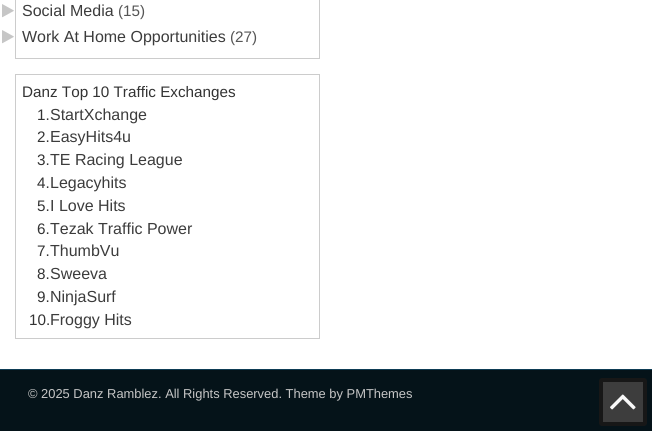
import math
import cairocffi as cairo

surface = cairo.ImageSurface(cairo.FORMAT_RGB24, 652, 431)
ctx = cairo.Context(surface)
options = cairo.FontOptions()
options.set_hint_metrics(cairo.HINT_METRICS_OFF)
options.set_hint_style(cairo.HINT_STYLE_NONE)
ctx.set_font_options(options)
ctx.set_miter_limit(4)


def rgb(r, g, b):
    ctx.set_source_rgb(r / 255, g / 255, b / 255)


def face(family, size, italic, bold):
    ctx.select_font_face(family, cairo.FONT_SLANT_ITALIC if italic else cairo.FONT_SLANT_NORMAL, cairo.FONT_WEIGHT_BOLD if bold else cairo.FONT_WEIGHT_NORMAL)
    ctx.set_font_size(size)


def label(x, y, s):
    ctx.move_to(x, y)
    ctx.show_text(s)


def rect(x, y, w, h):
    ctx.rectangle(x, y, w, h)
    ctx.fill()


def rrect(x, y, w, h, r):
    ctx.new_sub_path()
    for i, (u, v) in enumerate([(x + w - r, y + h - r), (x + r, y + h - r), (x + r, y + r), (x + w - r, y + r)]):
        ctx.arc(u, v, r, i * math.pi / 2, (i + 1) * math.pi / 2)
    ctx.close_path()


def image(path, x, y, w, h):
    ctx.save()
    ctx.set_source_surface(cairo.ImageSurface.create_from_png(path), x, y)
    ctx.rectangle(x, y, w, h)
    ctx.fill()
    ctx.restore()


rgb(255, 255, 255)
ctx.paint()
ctx.rectangle(15.5, -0.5, 304, 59)
rgb(204, 204, 204)
ctx.set_line_width(1)
ctx.stroke()
image('image0.png', 2, 4, 12, 14)
face('Liberation Sans', 16, 0, 0)
rgb(60, 60, 60)
label(22, 16, 'Social Media')
face('Liberation Sans', 15.25, 0, 0)
rgb(85, 85, 85)
label(118, 16, '(15)')
image('image0.png', 2, 30, 12, 14)
face('Liberation Sans', 16, 0, 0)
rgb(60, 60, 60)
label(22, 42, 'Work At Home Opportunities')
face('Liberation Sans', 15.25, 0, 0)
rgb(85, 85, 85)
label(230, 42, '(27)')
ctx.rectangle(15.5, 74.5, 304, 264)
rgb(204, 204, 204)
ctx.stroke()
rgb(51, 51, 51)
label(22, 97, 'Danz Top 10 Traffic Exchanges')
label(37, 120, '1.')
face('Liberation Sans', 16, 0, 0)
rgb(60, 60, 60)
label(50, 120, 'StartXchange')
face('Liberation Sans', 15.25, 0, 0)
rgb(51, 51, 51)
label(37, 142, '2.')
face('Liberation Sans', 16, 0, 0)
rgb(60, 60, 60)
label(50, 142, 'EasyHits4u')
face('Liberation Sans', 15.25, 0, 0)
rgb(51, 51, 51)
label(37, 165, '3.')
face('Liberation Sans', 16, 0, 0)
rgb(60, 60, 60)
label(50, 165, 'TE Racing League')
face('Liberation Sans', 15.25, 0, 0)
rgb(51, 51, 51)
label(37, 188, '4.')
face('Liberation Sans', 16, 0, 0)
rgb(60, 60, 60)
label(50, 188, 'Legacyhits')
face('Liberation Sans', 15.25, 0, 0)
rgb(51, 51, 51)
label(37, 211, '5.')
face('Liberation Sans', 16, 0, 0)
rgb(60, 60, 60)
label(50, 211, 'I Love Hits')
face('Liberation Sans', 15.25, 0, 0)
rgb(51, 51, 51)
label(37, 234, '6.')
face('Liberation Sans', 16, 0, 0)
rgb(60, 60, 60)
label(50, 234, 'Tezak Traffic Power')
face('Liberation Sans', 15.25, 0, 0)
rgb(51, 51, 51)
label(37, 256, '7.')
face('Liberation Sans', 16, 0, 0)
rgb(60, 60, 60)
label(50, 256, 'ThumbVu')
face('Liberation Sans', 15.25, 0, 0)
rgb(51, 51, 51)
label(37, 279, '8.')
face('Liberation Sans', 16, 0, 0)
rgb(60, 60, 60)
label(50, 279, 'Sweeva')
face('Liberation Sans', 15.25, 0, 0)
rgb(51, 51, 51)
label(37, 302, '9.')
face('Liberation Sans', 16, 0, 0)
rgb(60, 60, 60)
label(50, 302, 'NinjaSurf')
face('Liberation Sans', 15.25, 0, 0)
rgb(51, 51, 51)
label(29, 325, '10.')
face('Liberation Sans', 16, 0, 0)
rgb(60, 60, 60)
label(50, 325, 'Froggy Hits')
rgb(5, 19, 25)
rect(0, 370, 652, 61)
rgb(14, 60, 85)
rect(0, 369, 652, 1)
face('Liberation Sans', 12.9, 0, 0)
rgb(198, 198, 198)
label(28, 398, '© 2025 Danz Ramblez. All Rights Reserved. Theme by PMThemes')
rgb(61, 61, 61)
rrect(601, 380, 44, 44, 1)
ctx.fill_preserve()
rgb(23, 23, 23)
ctx.set_line_width(4)
ctx.stroke()
image('image1.png', 610, 394, 26, 16)
surface.write_to_png('render.png')
